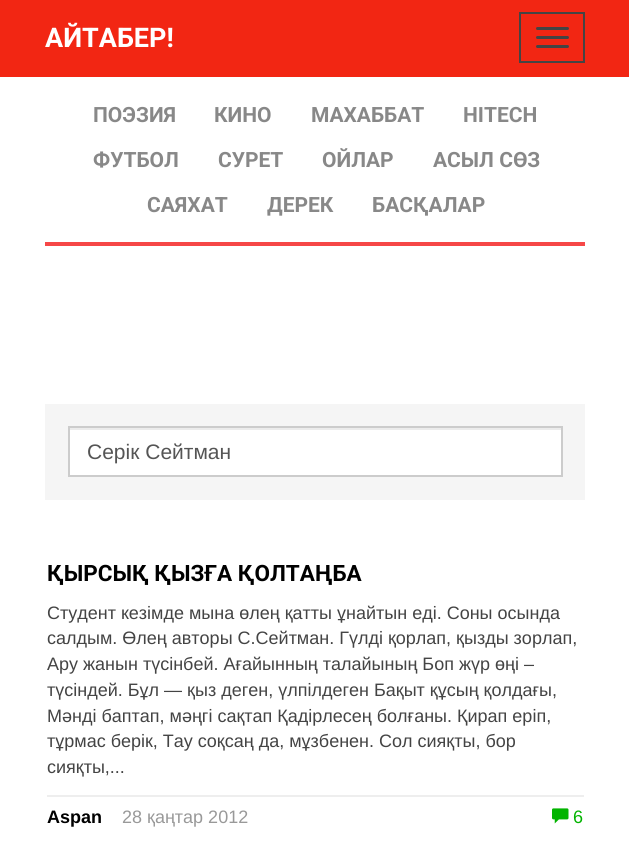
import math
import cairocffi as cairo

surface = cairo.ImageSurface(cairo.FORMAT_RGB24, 629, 866)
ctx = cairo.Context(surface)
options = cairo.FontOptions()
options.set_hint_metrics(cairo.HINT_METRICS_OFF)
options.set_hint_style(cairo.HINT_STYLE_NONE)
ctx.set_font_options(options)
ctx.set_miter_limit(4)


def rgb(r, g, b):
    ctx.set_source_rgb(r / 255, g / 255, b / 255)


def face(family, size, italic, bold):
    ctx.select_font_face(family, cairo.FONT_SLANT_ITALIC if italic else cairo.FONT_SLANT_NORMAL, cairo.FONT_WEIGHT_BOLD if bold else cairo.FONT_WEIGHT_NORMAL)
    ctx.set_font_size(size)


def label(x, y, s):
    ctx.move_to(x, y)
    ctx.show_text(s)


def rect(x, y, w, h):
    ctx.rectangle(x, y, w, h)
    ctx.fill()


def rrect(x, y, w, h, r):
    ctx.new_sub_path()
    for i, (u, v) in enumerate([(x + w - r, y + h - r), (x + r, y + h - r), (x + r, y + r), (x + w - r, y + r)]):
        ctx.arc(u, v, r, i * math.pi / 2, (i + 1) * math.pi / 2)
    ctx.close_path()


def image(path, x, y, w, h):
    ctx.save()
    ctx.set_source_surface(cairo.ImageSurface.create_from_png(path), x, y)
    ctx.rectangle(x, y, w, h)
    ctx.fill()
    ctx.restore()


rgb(255, 255, 255)
ctx.paint()
rgb(242, 38, 19)
rect(0, 0, 629, 77)
face('Roboto', 27, 0, 1)
rgb(255, 255, 255)
label(45, 47, 'АЙТАБЕР!')
ctx.rectangle(520, 13, 64, 49)
rgb(68, 68, 68)
ctx.stroke()
rrect(536, 27, 33, 3, 1.5)
ctx.fill()
rrect(536, 36, 33, 3, 1.5)
ctx.fill()
rrect(536, 45, 33, 3, 1.5)
ctx.fill()
rgb(246, 71, 71)
rect(45, 242, 540, 4)
face('Roboto', 21, 0, 1)
rgb(136, 136, 136)
label(93, 122, 'ПОЭЗИЯ')
label(214, 122, 'КИНО')
label(311, 122, 'МАХАББАТ')
label(463, 122, 'HITECH')
label(93, 167, 'ФУТБОЛ')
label(218, 167, 'СУРЕТ')
label(322, 167, 'ОЙЛАР')
label(433, 167, 'АСЫЛ СӨЗ')
label(147, 212, 'САЯХАТ')
label(267, 212, 'ДЕРЕК')
label(372, 212, 'БАСҚАЛАР')
rgb(245, 245, 245)
rect(45, 404, 540, 96)
rgb(255, 255, 255)
rect(70, 430, 491, 45)
rgb(236, 236, 236)
rect(69, 428, 492, 2)
ctx.rectangle(69, 427, 493, 49)
rgb(204, 204, 204)
ctx.stroke()
face('Liberation Sans', 21, 0, 0)
rgb(85, 85, 85)
label(87, 459, 'Серік Сейтман')
face('Roboto', 22.5, 0, 1)
rgb(0, 0, 0)
label(47, 581, 'ҚЫРСЫҚ ҚЫЗҒА ҚОЛТАҢБА')
face('Liberation Sans', 18, 0, 0)
rgb(68, 68, 68)
label(47, 619, 'Студент кезімде мына өлең қатты ұнайтын еді. Соны осында')
label(47, 644, 'салдым. Өлең авторы С.Сейтман. Гүлді қорлап, қызды зорлап,')
label(47, 670, 'Ару жанын түсінбей. Ағайынның талайының Боп жүр өңі –')
label(47, 696, 'түсіндей. Бұл — қыз деген, үлпілдеген Бақыт құсың қолдағы,')
label(47, 722, 'Мәнді баптап, мәңгі сақтап Қадірлесең болғаны. Қирап еріп,')
label(47, 747, 'тұрмас берік, Тау соқсаң да, мұзбенен. Сол сияқты, бор')
label(47, 773, 'сияқты,...')
rgb(238, 238, 238)
rect(47, 795, 537, 2)
face('Liberation Sans', 18, 0, 1)
rgb(0, 0, 0)
label(47, 823, 'Aspan')
face('Liberation Sans', 18, 0, 0)
rgb(153, 153, 153)
label(122, 823, '28 қаңтар 2012')
image('image0.png', 552, 808, 17, 16)
rgb(2, 180, 0)
label(573, 823, '6')
surface.write_to_png('render.png')
